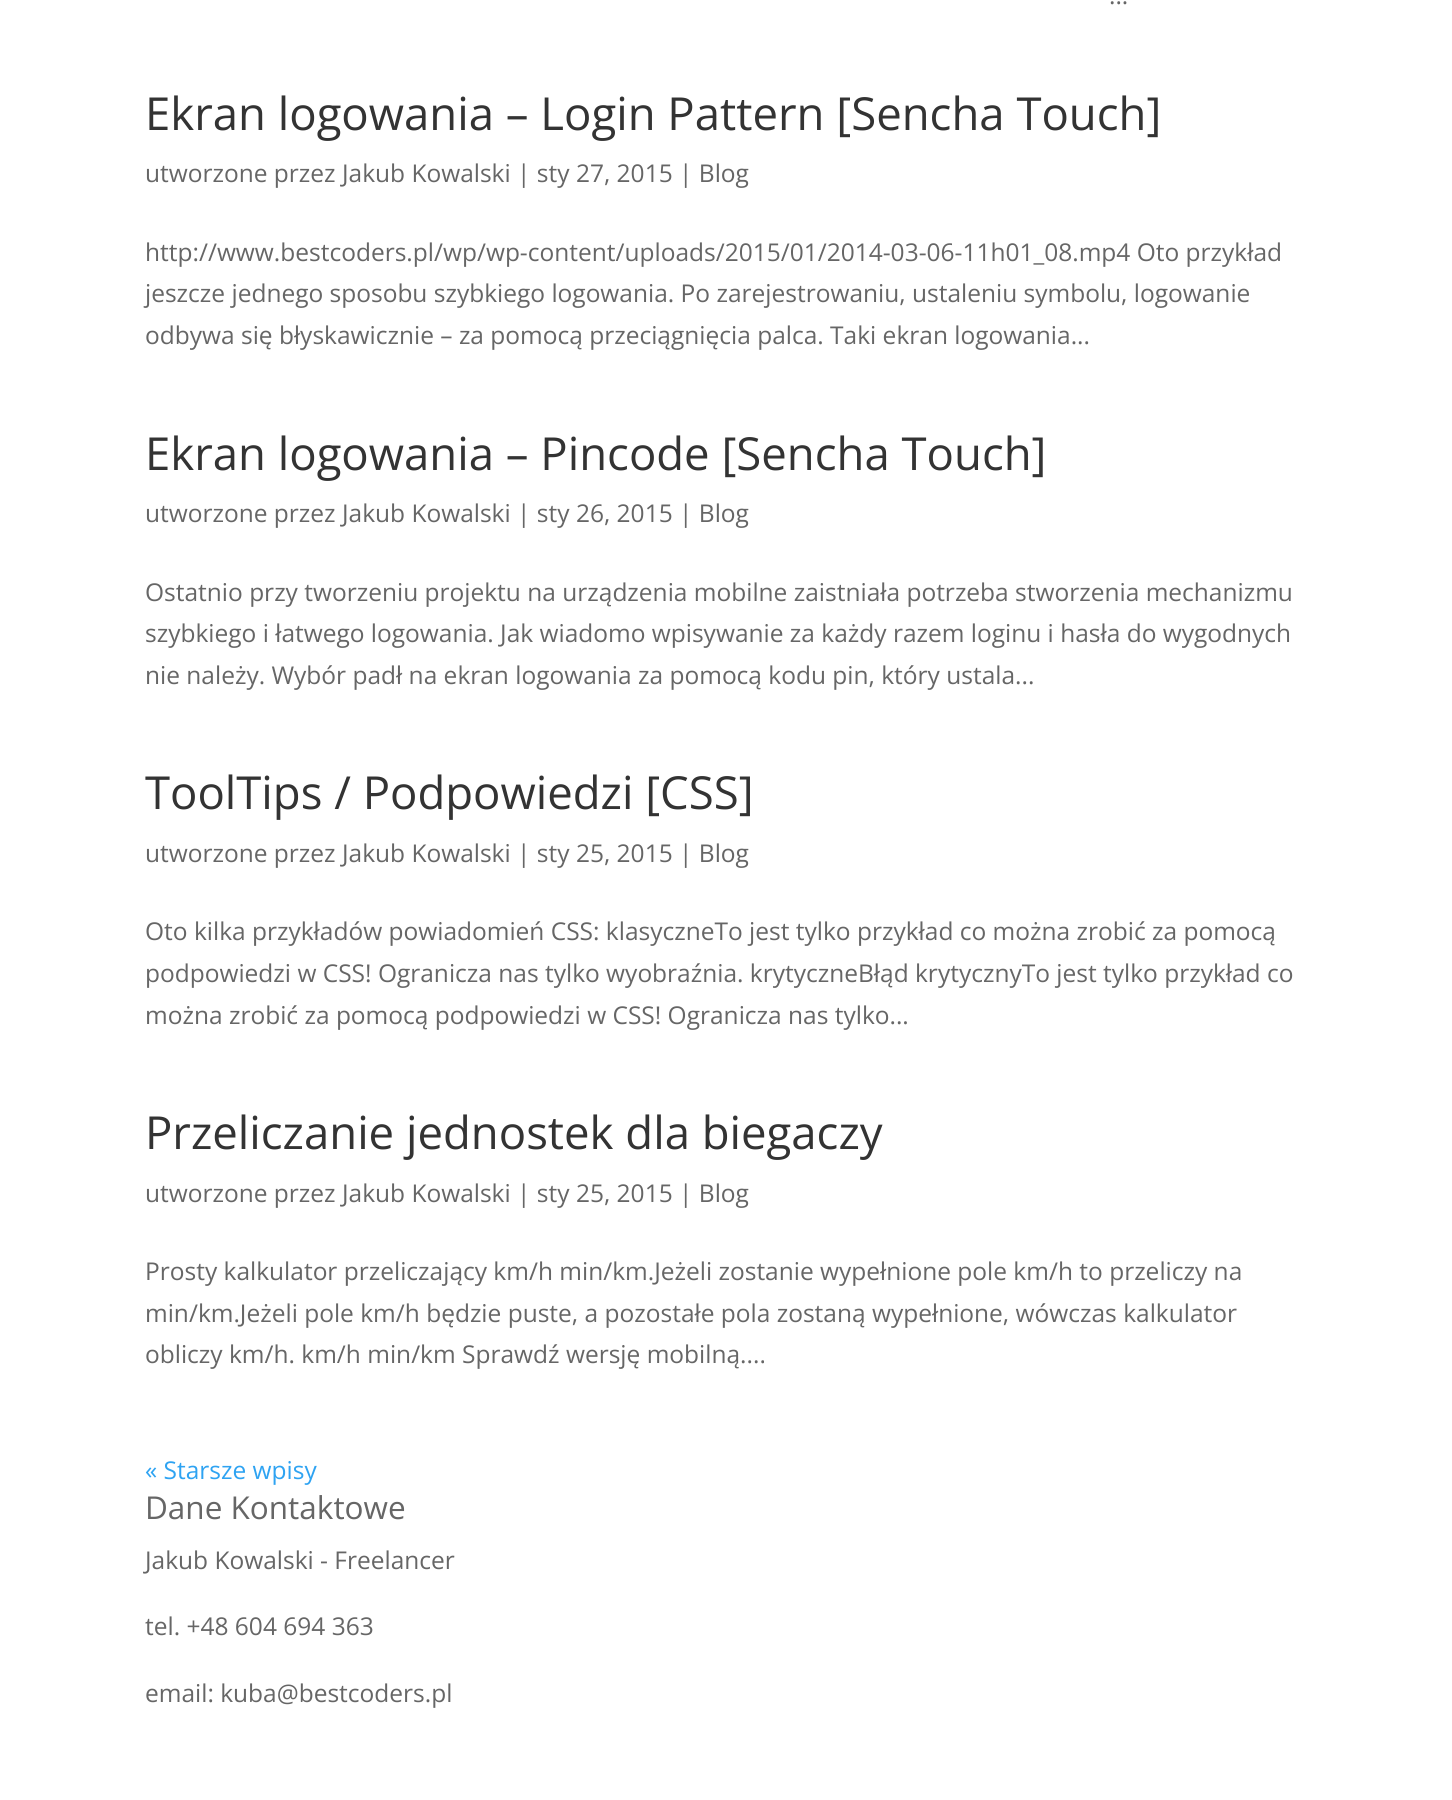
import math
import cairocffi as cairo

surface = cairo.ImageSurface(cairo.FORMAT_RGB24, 1452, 1800)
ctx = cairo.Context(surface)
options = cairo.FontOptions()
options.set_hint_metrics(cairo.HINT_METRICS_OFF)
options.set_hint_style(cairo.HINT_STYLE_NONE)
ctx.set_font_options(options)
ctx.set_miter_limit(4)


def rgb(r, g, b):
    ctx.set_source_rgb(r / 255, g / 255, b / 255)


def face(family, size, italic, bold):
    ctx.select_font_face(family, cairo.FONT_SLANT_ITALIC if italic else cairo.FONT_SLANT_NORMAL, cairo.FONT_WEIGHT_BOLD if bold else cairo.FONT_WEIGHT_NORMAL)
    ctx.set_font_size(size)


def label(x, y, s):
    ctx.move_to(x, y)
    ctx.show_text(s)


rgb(255, 255, 255)
ctx.paint()
face('Open Sans', 24.5, 0, 0)
rgb(102, 102, 102)
label(1109, 4, '...')
face('Open Sans', 45.5, 0, 0)
rgb(51, 51, 51)
label(145, 130, 'Ekran logowania – Login Pattern [Sencha Touch]')
face('Open Sans', 24.5, 0, 0)
rgb(102, 102, 102)
label(145, 182, 'utworzone przez Jakub Kowalski | sty 27, 2015 | Blog')
label(145, 261, 'http://www.bestcoders.pl/wp/wp-content/uploads/2015/01/2014-03-06-11h01_08.mp4 Oto przykład')
label(145, 302, 'jeszcze jednego sposobu szybkiego logowania. Po zarejestrowaniu, ustaleniu symbolu, logowanie')
label(145, 344, 'odbywa się błyskawicznie – za pomocą przeciągnięcia palca. Taki ekran logowania...')
face('Open Sans', 45.5, 0, 0)
rgb(51, 51, 51)
label(145, 470, 'Ekran logowania – Pincode [Sencha Touch]')
face('Open Sans', 24.5, 0, 0)
rgb(102, 102, 102)
label(145, 522, 'utworzone przez Jakub Kowalski | sty 26, 2015 | Blog')
label(145, 601, 'Ostatnio przy tworzeniu projektu na urządzenia mobilne zaistniała potrzeba stworzenia mechanizmu')
label(145, 642, 'szybkiego i łatwego logowania. Jak wiadomo wpisywanie za każdy razem loginu i hasła do wygodnych')
label(145, 684, 'nie należy. Wybór padł na ekran logowania za pomocą kodu pin, który ustala...')
face('Open Sans', 45.5, 0, 0)
rgb(51, 51, 51)
label(145, 809, 'ToolTips / Podpowiedzi [CSS]')
face('Open Sans', 24.5, 0, 0)
rgb(102, 102, 102)
label(145, 862, 'utworzone przez Jakub Kowalski | sty 25, 2015 | Blog')
label(145, 940, 'Oto kilka przykładów powiadomień CSS: klasyczneTo jest tylko przykład co można zrobić za pomocą')
label(145, 982, 'podpowiedzi w CSS! Ogranicza nas tylko wyobraźnia. krytyczneBłąd krytycznyTo jest tylko przykład co')
label(145, 1024, 'można zrobić za pomocą podpowiedzi w CSS! Ogranicza nas tylko...')
face('Open Sans', 45.5, 0, 0)
rgb(51, 51, 51)
label(145, 1149, 'Przeliczanie jednostek dla biegaczy')
face('Open Sans', 24.5, 0, 0)
rgb(102, 102, 102)
label(145, 1202, 'utworzone przez Jakub Kowalski | sty 25, 2015 | Blog')
label(145, 1280, 'Prosty kalkulator przeliczający km/h min/km.Jeżeli zostanie wypełnione pole km/h to przeliczy na')
label(145, 1322, 'min/km.Jeżeli pole km/h będzie puste, a pozostałe pola zostaną wypełnione, wówczas kalkulator')
label(145, 1363, 'obliczy km/h. km/h min/km Sprawdź wersję mobilną....')
rgb(46, 163, 242)
label(145, 1479, '« Starsze wpisy')
face('Open Sans', 31.5, 0, 0)
rgb(102, 102, 102)
label(145, 1519, 'Dane Kontaktowe')
face('Open Sans', 24.5, 0, 0)
label(145, 1569, 'Jakub Kowalski - Freelancer')
label(145, 1635, 'tel. +48 604 694 363')
label(145, 1702, 'email: kuba@bestcoders.pl')
surface.write_to_png('render.png')
